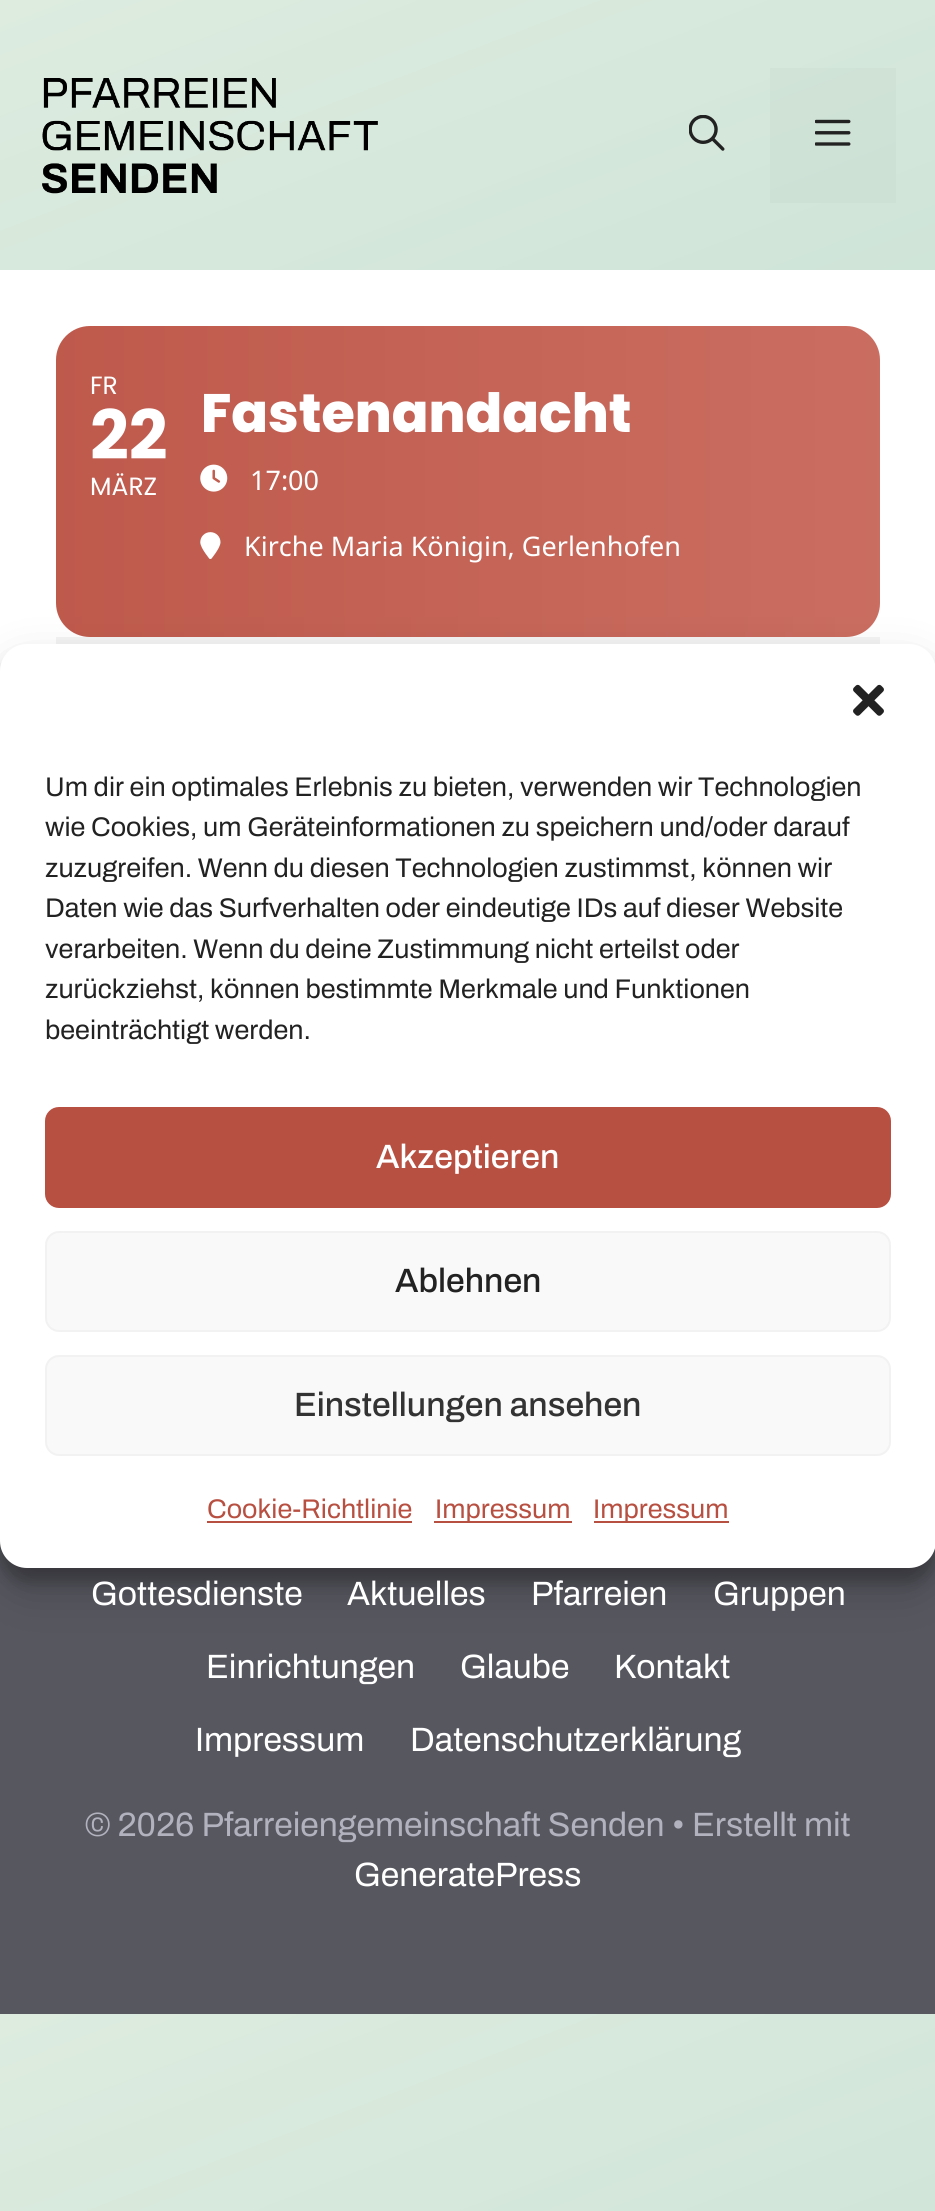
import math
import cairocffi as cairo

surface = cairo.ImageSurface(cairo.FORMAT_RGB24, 935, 2211)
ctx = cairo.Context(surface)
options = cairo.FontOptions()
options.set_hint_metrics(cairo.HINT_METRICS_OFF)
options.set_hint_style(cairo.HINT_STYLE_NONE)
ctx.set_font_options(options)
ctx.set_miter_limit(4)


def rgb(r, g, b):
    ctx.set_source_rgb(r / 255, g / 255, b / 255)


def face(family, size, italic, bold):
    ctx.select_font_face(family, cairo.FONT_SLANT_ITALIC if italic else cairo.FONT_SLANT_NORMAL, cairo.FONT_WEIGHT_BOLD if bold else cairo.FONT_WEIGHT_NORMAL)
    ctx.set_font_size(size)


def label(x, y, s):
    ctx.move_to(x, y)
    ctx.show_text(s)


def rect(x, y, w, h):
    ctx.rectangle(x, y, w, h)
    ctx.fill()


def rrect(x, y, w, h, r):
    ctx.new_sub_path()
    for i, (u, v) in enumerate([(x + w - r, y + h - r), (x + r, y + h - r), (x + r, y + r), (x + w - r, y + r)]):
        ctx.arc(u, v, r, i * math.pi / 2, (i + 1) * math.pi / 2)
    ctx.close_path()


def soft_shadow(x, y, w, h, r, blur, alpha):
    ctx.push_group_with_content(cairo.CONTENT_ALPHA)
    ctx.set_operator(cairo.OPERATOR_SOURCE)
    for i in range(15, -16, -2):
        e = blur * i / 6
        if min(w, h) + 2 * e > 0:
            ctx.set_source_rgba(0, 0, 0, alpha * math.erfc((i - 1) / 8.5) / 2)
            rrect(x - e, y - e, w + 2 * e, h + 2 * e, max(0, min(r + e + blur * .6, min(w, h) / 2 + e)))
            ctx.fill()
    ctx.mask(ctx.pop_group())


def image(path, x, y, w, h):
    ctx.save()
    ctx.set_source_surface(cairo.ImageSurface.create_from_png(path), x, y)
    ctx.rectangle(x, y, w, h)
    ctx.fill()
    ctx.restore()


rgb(255, 255, 255)
ctx.paint()
gradient = cairo.LinearGradient(71, -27, 865, 2041)
gradient.add_color_stop_rgba(0, 0.867, 0.925, 0.875, 1)
gradient.add_color_stop_rgba(1, 0.659, 0.816, 0.769, 1)
ctx.set_source(gradient)
rect(0, 0, 935, 270)
gradient = cairo.LinearGradient(71, -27, 865, 2041)
gradient.add_color_stop_rgba(0, 0.851, 0.906, 0.859, 1)
gradient.add_color_stop_rgba(1, 0.647, 0.8, 0.753, 1)
ctx.set_source(gradient)
rect(770, 68, 126, 135)
gradient = cairo.LinearGradient(71, 1986, 865, 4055)
gradient.add_color_stop_rgba(0, 0.867, 0.925, 0.875, 1)
gradient.add_color_stop_rgba(1, 0.659, 0.816, 0.769, 1)
ctx.set_source(gradient)
rect(0, 2014, 935, 197)
image('image0.png', 42, 78, 336, 116)
image('image1.png', 689, 115, 36, 36)
image('image2.png', 815, 119, 36, 27)
gradient = cairo.LinearGradient(-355, 482, 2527, 482)
gradient.add_color_stop_rgba(0, 0.722, 0.314, 0.259, 1)
gradient.add_color_stop_rgba(1, 0.89, 0.584, 0.541, 1)
ctx.set_source(gradient)
rrect(56, 326, 824, 311, 34)
ctx.fill()
face('Poppins', 25, 0, 0)
rgb(255, 255, 255)
label(90, 394, 'FR')
face('Poppins', 68, 0, 1)
label(90, 459, '22')
face('Poppins', 25, 0, 0)
label(90, 495, 'MÄRZ')
face('Poppins ExtraBold', 54, 0, 0)
label(201, 432, 'Fastenandacht')
image('image3.png', 200, 464, 28, 28)
face('Noto Sans', 27, 0, 0)
label(250, 490, '17:00')
image('image4.png', 200, 532, 21, 27)
label(244, 556, 'Kirche Maria Königin, Gerlenhofen')
rgb(243, 243, 243)
rect(56, 637, 824, 7)
rgb(87, 87, 96)
rect(0, 1541, 935, 473)
rgb(0, 0, 0)
soft_shadow(0, 657, 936, 925, 27, 7, 0.23)
soft_shadow(0, 666, 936, 925, 27, 22.5, 0.19)
rgb(255, 255, 255)
rrect(0, 644, 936, 924, 27)
ctx.fill()
image('image5.png', 853, 684, 31, 32)
face('Archivo', 27, 0, 0)
rgb(34, 34, 34)
label(45, 796, 'Um dir ein optimales Erlebnis zu bieten, verwenden wir Technologien')
label(45, 836, 'wie Cookies, um Geräteinformationen zu speichern und/oder darauf')
label(45, 877, 'zuzugreifen. Wenn du diesen Technologien zustimmst, können wir')
label(45, 917, 'Daten wie das Surfverhalten oder eindeutige IDs auf dieser Website')
label(45, 958, 'verarbeiten. Wenn du deine Zustimmung nicht erteilst oder')
label(45, 998, 'zurückziehst, können bestimmte Merkmale und Funktionen')
label(45, 1039, 'beeinträchtigt werden.')
rgb(184, 80, 66)
rrect(46, 1108, 844, 99, 13)
ctx.fill_preserve()
ctx.stroke()
face('Archivo Medium', 33.75, 0, 0)
rgb(255, 255, 255)
label(376, 1168, 'Akzeptieren')
rgb(249, 249, 249)
rrect(46, 1232, 844, 99, 13)
ctx.fill_preserve()
rgb(242, 242, 242)
ctx.stroke()
rgb(34, 34, 34)
label(395, 1292, 'Ablehnen')
rgb(249, 249, 249)
rrect(46, 1356, 844, 99, 13)
ctx.fill_preserve()
rgb(242, 242, 242)
ctx.stroke()
rgb(51, 51, 51)
label(294, 1416, 'Einstellungen ansehen')
face('Archivo', 27, 0, 0)
rgb(184, 80, 66)
label(207, 1518, 'Cookie-Richtlinie')
rect(207, 1521, 205, 2)
rect(434, 1521, 138, 2)
label(435, 1518, 'Impressum')
rect(594, 1521, 135, 2)
label(593, 1518, 'Impressum')
face('Archivo', 33.75, 0, 0)
rgb(255, 255, 255)
label(91, 1605, 'Gottesdienste')
label(347, 1605, 'Aktuelles')
label(531, 1605, 'Pfarreien')
label(713, 1605, 'Gruppen')
label(206, 1678, 'Einrichtungen')
label(460, 1678, 'Glaube')
label(614, 1678, 'Kontakt')
label(195, 1751, 'Impressum')
label(410, 1751, 'Datenschutzerklärung')
rgb(178, 178, 190)
label(85, 1836, '© 2026 Pfarreiengemeinschaft Senden • Erstellt mit')
rgb(255, 255, 255)
label(354, 1886, 'GeneratePress')
surface.write_to_png('render.png')
